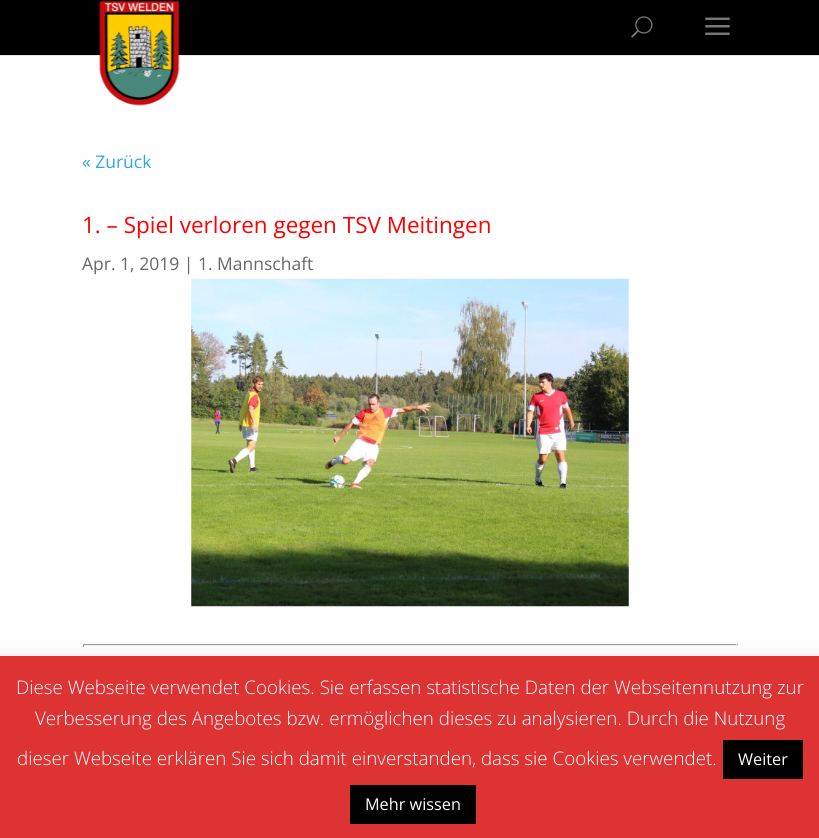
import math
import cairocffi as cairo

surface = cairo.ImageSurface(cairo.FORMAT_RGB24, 819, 838)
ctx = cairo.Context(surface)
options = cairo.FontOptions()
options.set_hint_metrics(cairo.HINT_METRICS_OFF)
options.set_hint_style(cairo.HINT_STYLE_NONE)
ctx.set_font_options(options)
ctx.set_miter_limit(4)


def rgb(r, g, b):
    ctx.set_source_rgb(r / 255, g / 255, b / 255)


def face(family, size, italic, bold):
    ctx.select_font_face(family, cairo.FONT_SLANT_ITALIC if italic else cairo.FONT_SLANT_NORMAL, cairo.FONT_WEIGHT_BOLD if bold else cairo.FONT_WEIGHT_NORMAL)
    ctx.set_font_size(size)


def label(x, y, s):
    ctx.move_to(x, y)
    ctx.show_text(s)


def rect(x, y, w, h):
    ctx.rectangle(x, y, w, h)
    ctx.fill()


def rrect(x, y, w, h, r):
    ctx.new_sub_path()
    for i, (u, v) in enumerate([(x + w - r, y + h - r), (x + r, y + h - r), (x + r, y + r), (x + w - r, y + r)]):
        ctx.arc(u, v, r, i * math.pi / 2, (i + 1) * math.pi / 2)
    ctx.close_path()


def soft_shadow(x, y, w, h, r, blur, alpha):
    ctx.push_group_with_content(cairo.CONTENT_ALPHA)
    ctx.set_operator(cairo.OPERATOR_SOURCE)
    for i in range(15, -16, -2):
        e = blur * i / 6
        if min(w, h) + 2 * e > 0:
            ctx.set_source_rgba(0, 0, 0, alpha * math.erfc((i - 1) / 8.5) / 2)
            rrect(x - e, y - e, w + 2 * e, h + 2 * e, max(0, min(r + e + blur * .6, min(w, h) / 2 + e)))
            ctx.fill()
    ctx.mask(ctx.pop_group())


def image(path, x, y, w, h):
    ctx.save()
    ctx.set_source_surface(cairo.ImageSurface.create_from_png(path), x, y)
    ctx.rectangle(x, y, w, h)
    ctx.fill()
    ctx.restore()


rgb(255, 255, 255)
ctx.paint()
rgb(230, 230, 230)
rect(0, 55, 819, 1)
rgb(0, 0, 0)
rect(0, 0, 819, 55)
image('image0.png', 99, 0, 81, 106)
image('image1.png', 631, 16, 22, 22)
image('image2.png', 705, 17, 25, 18)
face('Open Sans', 17.5, 0, 0)
rgb(46, 163, 242)
label(82, 168, '« Zurück')
face('Open Sans', 22.5, 0, 0)
rgb(255, 0, 0)
label(82, 233, '1. – Spiel verloren gegen TSV Meitingen')
face('Open Sans', 17.5, 0, 0)
rgb(102, 102, 102)
label(82, 270, 'Apr. 1, 2019 | 1. Mannschaft')
image('image3.png', 191, 278, 438, 329)
rgb(159, 159, 159)
rect(83, 644, 655, 1)
rgb(238, 238, 238)
rect(736, 644, 1, 3)
rect(83, 645, 655, 1)
rgb(159, 159, 159)
rect(83, 644, 1, 3)
rgb(172, 171, 171)
soft_shadow(0, 655, 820, 183, 0, 6, 0.3)
rgb(221, 51, 51)
rect(0, 656, 819, 182)
face('Open Sans Light', 18.75, 0, 0)
rgb(255, 255, 255)
label(16, 694, 'Diese Webseite verwendet Cookies. Sie erfassen statistische Daten der Webseitennutzung zur')
label(35, 725, 'Verbesserung des Angebotes bzw. ermöglichen dieses zu analysieren. Durch die Nutzung')
label(17, 765, 'dieser Webseite erklären Sie sich damit einverstanden, dass sie Cookies verwendet.')
rgb(0, 0, 0)
rect(723, 740, 80, 39)
face('Open Sans', 16.25, 0, 0)
rgb(255, 255, 255)
label(738, 765, 'Weiter')
rgb(0, 0, 0)
rect(350, 785, 126, 39)
rgb(255, 255, 255)
label(365, 810, 'Mehr wissen')
surface.write_to_png('render.png')
